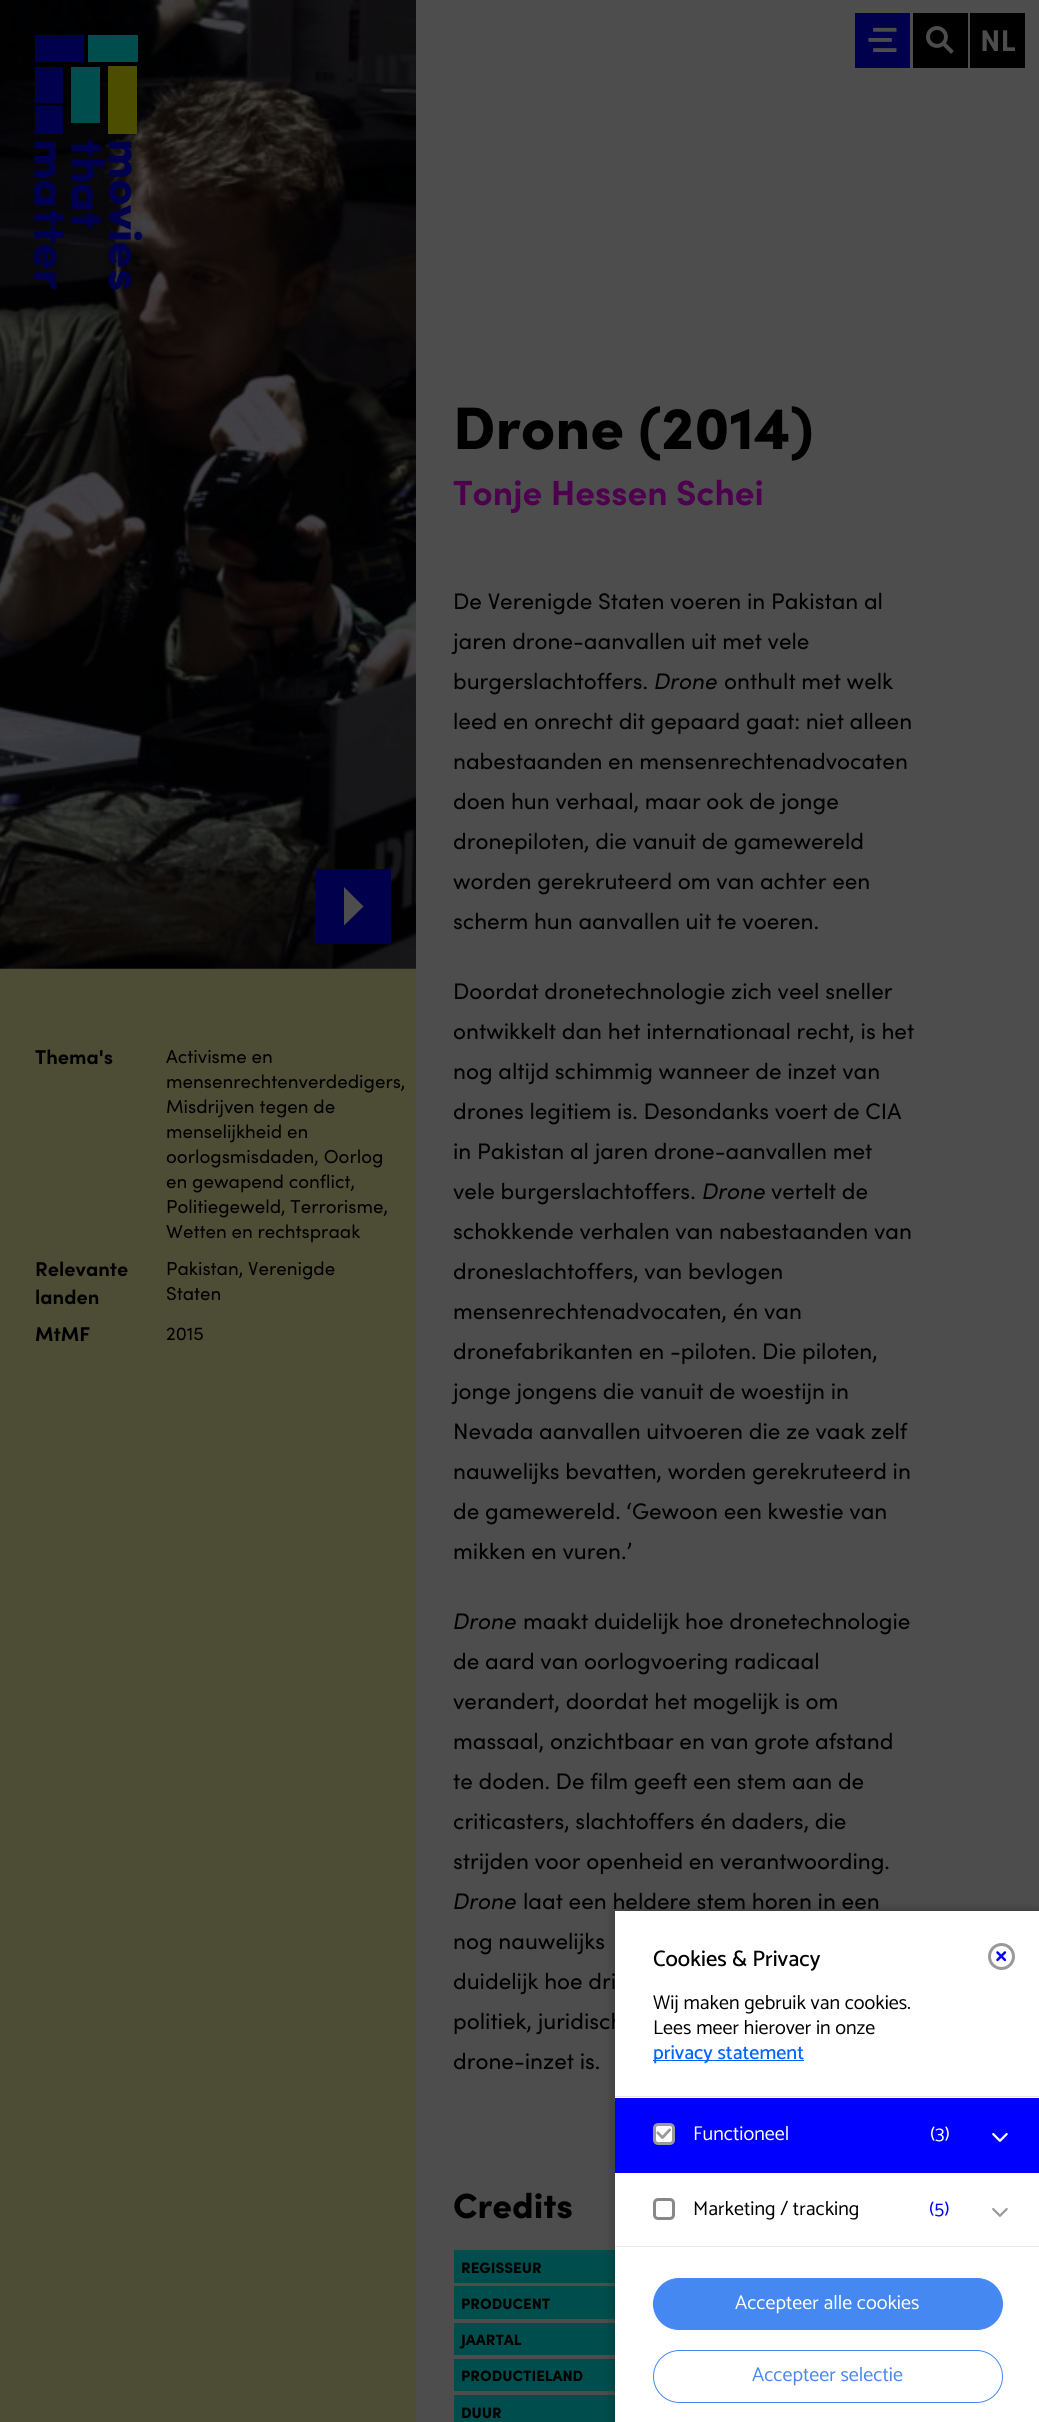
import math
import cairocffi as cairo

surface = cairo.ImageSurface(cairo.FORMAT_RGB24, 1039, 2422)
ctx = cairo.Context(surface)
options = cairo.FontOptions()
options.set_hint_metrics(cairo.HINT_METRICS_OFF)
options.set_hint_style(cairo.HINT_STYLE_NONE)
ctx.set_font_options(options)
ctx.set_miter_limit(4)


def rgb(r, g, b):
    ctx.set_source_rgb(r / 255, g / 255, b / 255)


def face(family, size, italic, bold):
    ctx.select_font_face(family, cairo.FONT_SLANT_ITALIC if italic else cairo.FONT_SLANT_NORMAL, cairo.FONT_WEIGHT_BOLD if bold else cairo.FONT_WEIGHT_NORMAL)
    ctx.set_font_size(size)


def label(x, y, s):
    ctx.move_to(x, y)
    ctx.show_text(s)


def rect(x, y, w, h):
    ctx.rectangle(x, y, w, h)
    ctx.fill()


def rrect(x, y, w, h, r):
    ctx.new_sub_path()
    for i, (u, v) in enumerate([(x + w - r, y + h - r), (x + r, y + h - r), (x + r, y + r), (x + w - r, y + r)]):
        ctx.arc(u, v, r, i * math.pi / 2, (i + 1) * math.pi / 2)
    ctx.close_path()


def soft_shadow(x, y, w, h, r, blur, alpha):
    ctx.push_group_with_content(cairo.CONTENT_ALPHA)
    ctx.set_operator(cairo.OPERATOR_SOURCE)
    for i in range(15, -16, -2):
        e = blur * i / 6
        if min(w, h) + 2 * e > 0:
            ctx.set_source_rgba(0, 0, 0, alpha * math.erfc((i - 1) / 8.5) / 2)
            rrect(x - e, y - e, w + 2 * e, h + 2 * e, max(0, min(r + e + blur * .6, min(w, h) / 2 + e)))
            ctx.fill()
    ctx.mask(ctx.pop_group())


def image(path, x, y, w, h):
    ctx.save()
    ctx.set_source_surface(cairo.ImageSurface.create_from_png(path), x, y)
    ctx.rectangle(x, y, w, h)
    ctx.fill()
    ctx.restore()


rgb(77, 77, 77)
ctx.paint()
image('image3.png', 0, 0, 416, 969)
rgb(0, 77, 77)
rect(71, 67, 29, 56)
rgb(77, 77, 0)
rect(108, 66, 29, 68)
rgb(0, 77, 77)
rect(88, 35, 50, 27)
rgb(0, 0, 77)
rect(35, 35, 49, 27)
rect(35, 67, 28, 36)
rect(35, 106, 28, 28)
image('image0.png', 33, 140, 110, 150)
rect(855, 13, 55, 55)
image('image1.png', 868, 27, 29, 25)
ctx.rectangle(915.5, 15.5, 50, 50)
rgb(0, 0, 0)
ctx.set_line_width(5)
ctx.stroke()
rect(918, 18, 45, 45)
image('image2.png', 926, 26, 28, 28)
ctx.rectangle(972.5, 15.5, 50, 50)
ctx.stroke()
rect(975, 18, 45, 45)
face('Sofia', 30, 0, 1)
rgb(77, 77, 77)
label(980, 51, 'NL')
rgb(0, 0, 77)
rect(316, 869, 75, 75)
rgb(77, 77, 77)
ctx.new_path()
ctx.move_to(344, 887)
ctx.line_to(363.5, 906.5)
ctx.line_to(344, 925.5)
ctx.close_path()
ctx.fill()
rgb(77, 77, 54)
rect(0, 969, 416, 1453)
face('Sofia', 20, 0, 1)
rgb(0, 0, 0)
label(35, 1064, 'Thema\'s')
face('Sofia', 18.75, 0, 0)
label(166, 1063, 'Activisme en')
label(166, 1088, 'mensenrechtenverdedigers,')
label(166, 1113, 'Misdrijven tegen de')
label(166, 1138, 'menselijkheid en')
label(166, 1163, 'oorlogsmisdaden, Oorlog')
label(166, 1188, 'en gewapend conflict,')
label(166, 1213, 'Politiegeweld, Terrorisme,')
label(166, 1238, 'Wetten en rechtspraak')
face('Sofia', 20, 0, 1)
label(35, 1276, 'Relevante')
label(35, 1304, 'landen')
face('Sofia', 18.75, 0, 0)
label(166, 1275, 'Pakistan, Verenigde')
label(166, 1300, 'Staten')
face('Sofia', 20, 0, 1)
label(35, 1341, 'MtMF')
face('Sofia', 18.75, 0, 0)
label(166, 1340, '2015')
face('Sofia Black', 60, 0, 0)
label(453, 449, 'Drone (2014)')
face('Sofia', 35, 0, 1)
rgb(77, 0, 77)
label(453, 505, 'Tonje Hessen Schei')
face('Sofia', 22.5, 0, 0)
rgb(0, 0, 0)
label(453, 609, 'De Verenigde Staten voeren in Pakistan al')
label(453, 649, 'jaren drone-aanvallen uit met vele')
label(453, 689, 'burgerslachtoffers.')
face('Sofia', 22.5, 1, 0)
label(654, 689, 'Drone')
face('Sofia', 22.5, 0, 0)
label(724, 689, 'onthult met welk')
label(453, 729, 'leed en onrecht dit gepaard gaat: niet alleen')
label(453, 769, 'nabestaanden en mensenrechtenadvocaten')
label(453, 809, 'doen hun verhaal, maar ook de jonge')
label(453, 849, 'dronepiloten, die vanuit de gamewereld')
label(453, 889, 'worden gerekruteerd om van achter een')
label(453, 929, 'scherm hun aanvallen uit te voeren.')
label(453, 999, 'Doordat dronetechnologie zich veel sneller')
label(453, 1039, 'ontwikkelt dan het internationaal recht, is het')
label(453, 1079, 'nog altijd schimmig wanneer de inzet van')
label(453, 1119, 'drones legitiem is. Desondanks voert de CIA')
label(453, 1159, 'in Pakistan al jaren drone-aanvallen met')
label(453, 1199, 'vele burgerslachtoffers.')
face('Sofia', 22.5, 1, 0)
label(702, 1199, 'Drone')
face('Sofia', 22.5, 0, 0)
label(771, 1199, 'vertelt de')
label(453, 1239, 'schokkende verhalen van nabestaanden van')
label(453, 1279, 'droneslachtoffers, van bevlogen')
label(453, 1319, 'mensenrechtenadvocaten, én van')
label(453, 1359, 'dronefabrikanten en -piloten. Die piloten,')
label(453, 1399, 'jonge jongens die vanuit de woestijn in')
label(453, 1439, 'Nevada aanvallen uitvoeren die ze vaak zelf')
label(453, 1479, 'nauwelijks bevatten, worden gerekruteerd in')
label(453, 1519, 'de gamewereld. ‘Gewoon een kwestie van')
label(453, 1559, 'mikken en vuren.’')
face('Sofia', 22.5, 1, 0)
label(453, 1629, 'Drone')
face('Sofia', 22.5, 0, 0)
label(523, 1629, 'maakt duidelijk hoe dronetechnologie')
label(453, 1669, 'de aard van oorlogvoering radicaal')
label(453, 1709, 'verandert, doordat het mogelijk is om')
label(453, 1749, 'massaal, onzichtbaar en van grote afstand')
label(453, 1789, 'te doden. De film geeft een stem aan de')
label(453, 1829, 'criticasters, slachtoffers én daders, die')
label(453, 1869, 'strijden voor openheid en verantwoording.')
face('Sofia', 22.5, 1, 0)
label(453, 1909, 'Drone')
face('Sofia', 22.5, 0, 0)
label(523, 1909, 'laat een heldere stem horen in een')
label(453, 1949, 'nog nauwelijks')
label(453, 1989, 'duidelijk hoe dri')
label(453, 2029, 'politiek, juridisch')
label(453, 2069, 'drone-inzet is.')
face('Sofia Black', 35, 0, 0)
label(453, 2218, 'Credits')
rgb(0, 77, 77)
rect(454, 2250, 161, 33)
face('Sofia Black', 15, 0, 0)
rgb(0, 0, 0)
label(461, 2273, 'REGISSEUR')
rgb(0, 77, 77)
rect(454, 2286, 161, 33)
rgb(0, 0, 0)
label(461, 2309, 'PRODUCENT')
rgb(0, 77, 77)
rect(454, 2323, 161, 32)
rgb(0, 0, 0)
label(461, 2345, 'JAARTAL')
rgb(0, 77, 77)
rect(454, 2359, 161, 32)
rgb(0, 0, 0)
label(461, 2381, 'PRODUCTIELAND')
rgb(0, 77, 77)
rect(454, 2395, 161, 27)
rgb(0, 0, 0)
label(461, 2418, 'DUUR')
rgb(0, 0, 0)
soft_shadow(615, 1911, 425, 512, 0, 6, 0.3)
rgb(255, 255, 255)
rect(615, 1911, 424, 511)
rgb(230, 230, 230)
rect(615, 2096, 424, 1)
face('Catamaran Medium', 22.5, 0, 0)
rgb(0, 0, 0)
label(653, 1966, 'Cookies & Privacy')
ctx.new_path()
ctx.arc(1001.5, 1956.5, 12, 0, 2 * math.pi)
rgb(153, 153, 153)
ctx.set_line_width(3)
ctx.stroke()
image('image4.png', 996, 1951, 11, 11)
face('Catamaran', 20, 0, 0)
rgb(0, 0, 0)
label(653, 2009, 'Wij maken gebruik van cookies.')
label(653, 2034, 'Lees meer hierover in onze')
rgb(0, 102, 255)
rect(653, 2060, 151, 1)
face('Catamaran Medium', 20, 0, 0)
label(653, 2059, 'privacy statement')
rgb(0, 0, 255)
rect(615, 2098, 424, 75)
rgb(0, 0, 204)
rect(615, 2171, 424, 1)
rgb(255, 255, 255)
rrect(654.5, 2124.5, 19, 19, 3.5)
ctx.fill_preserve()
rgb(155, 155, 155)
ctx.stroke()
image('image5.png', 656, 2128, 15, 11)
face('Catamaran', 20, 0, 0)
rgb(255, 255, 255)
label(693, 2140, 'Functioneel')
label(930, 2140, '(3)')
image('image6.png', 992, 2133, 16, 9)
rgb(230, 230, 230)
rect(615, 2246, 424, 1)
rrect(654.5, 2199.5, 19, 19, 3.5)
rgb(136, 136, 136)
ctx.stroke()
rgb(0, 0, 0)
label(693, 2215, 'Marketing / tracking')
rgb(0, 0, 255)
label(929, 2215, '(5)')
image('image7.png', 992, 2208, 16, 9)
rgb(70, 136, 241)
rrect(653.5, 2278.5, 349, 51, 25.5)
ctx.fill_preserve()
ctx.set_line_width(1)
ctx.stroke()
rgb(255, 255, 255)
label(735, 2309, 'Accepteer alle cookies')
rrect(653.5, 2350.5, 349, 52, 26)
rgb(70, 136, 241)
ctx.stroke()
label(752, 2381, 'Accepteer selectie')
surface.write_to_png('render.png')
